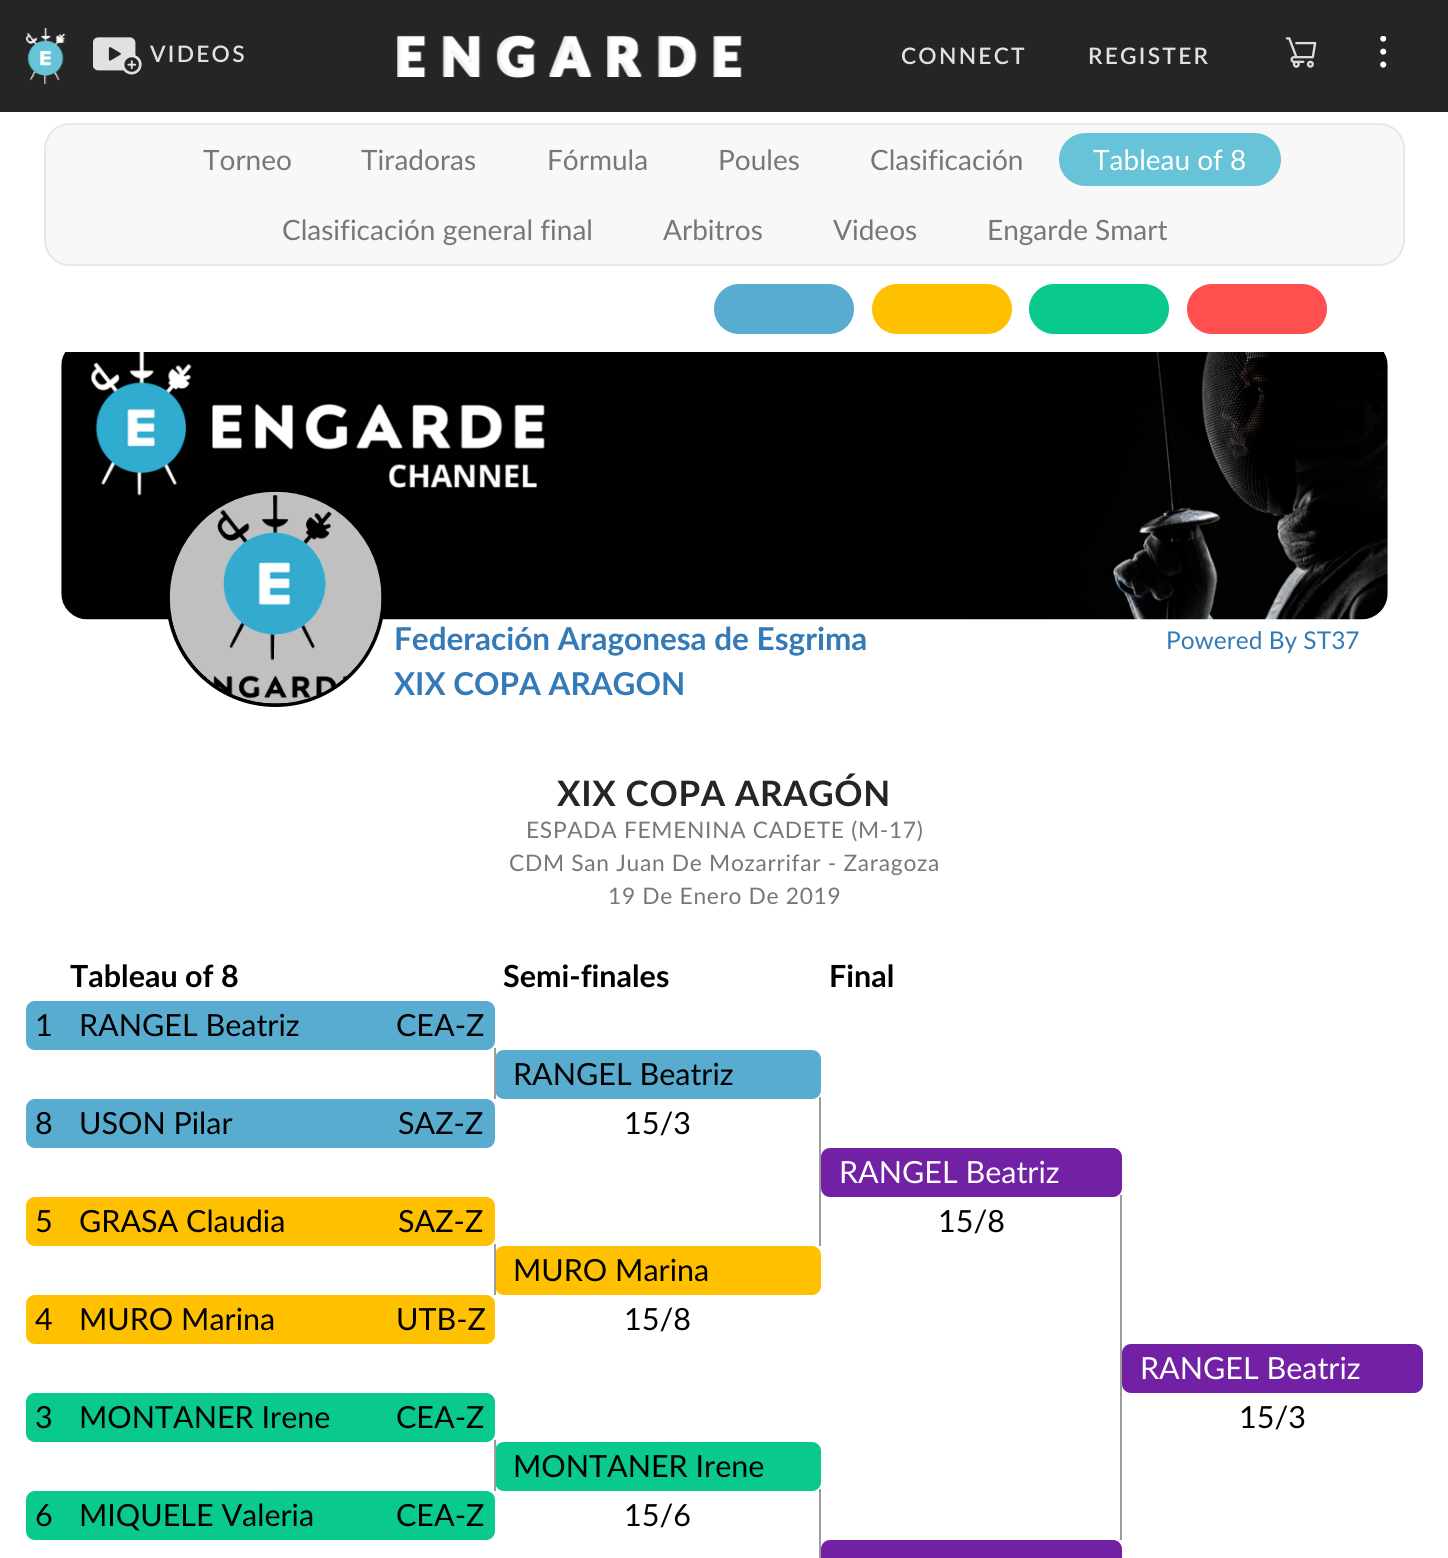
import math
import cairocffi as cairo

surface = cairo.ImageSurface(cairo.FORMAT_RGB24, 1448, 1558)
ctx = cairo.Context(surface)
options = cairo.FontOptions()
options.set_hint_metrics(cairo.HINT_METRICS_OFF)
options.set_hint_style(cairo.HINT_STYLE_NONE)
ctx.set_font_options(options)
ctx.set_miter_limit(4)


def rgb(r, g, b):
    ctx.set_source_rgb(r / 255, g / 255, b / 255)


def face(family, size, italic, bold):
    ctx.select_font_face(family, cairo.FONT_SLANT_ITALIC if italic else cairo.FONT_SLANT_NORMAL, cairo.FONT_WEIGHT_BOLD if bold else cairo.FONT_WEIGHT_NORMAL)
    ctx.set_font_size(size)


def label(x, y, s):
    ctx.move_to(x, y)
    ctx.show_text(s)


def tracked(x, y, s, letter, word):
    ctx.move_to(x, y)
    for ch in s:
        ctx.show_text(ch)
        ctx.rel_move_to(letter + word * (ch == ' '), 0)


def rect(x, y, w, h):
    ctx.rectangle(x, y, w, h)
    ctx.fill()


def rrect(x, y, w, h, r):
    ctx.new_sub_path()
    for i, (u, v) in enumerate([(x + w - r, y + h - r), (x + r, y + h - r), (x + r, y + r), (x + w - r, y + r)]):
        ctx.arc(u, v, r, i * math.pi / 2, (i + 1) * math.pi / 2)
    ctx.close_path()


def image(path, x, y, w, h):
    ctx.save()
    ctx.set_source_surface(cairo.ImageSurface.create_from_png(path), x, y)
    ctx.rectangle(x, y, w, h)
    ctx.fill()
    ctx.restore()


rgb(255, 255, 255)
ctx.paint()
rgb(37, 37, 37)
rect(0, 0, 1448, 112)
image('image0.png', 26, 28, 40, 56)
image('image1.png', 93, 37, 49, 38)
face('Lato SemiBold', 22.75, 0, 0)
rgb(225, 225, 225)
tracked(150, 62, 'VIDEOS', 2.25, 0)
image('image2.png', 397, 35, 345, 43)
tracked(901, 64, 'CONNECT', 2.25, 0)
tracked(1088, 64, 'REGISTER', 2.25, 0)
image('image3.png', 1285, 37, 32, 31)
image('image4.png', 1380, 36, 7, 32)
rgb(248, 248, 248)
rrect(45, 124, 1359, 141, 25)
ctx.fill_preserve()
rgb(231, 231, 231)
ctx.stroke()
face('Lato', 28, 0, 0)
rgb(119, 119, 119)
label(203, 170, 'Torneo')
label(361, 170, 'Tiradoras')
label(547, 170, 'Fórmula')
label(718, 170, 'Poules')
label(870, 170, 'Clasificación')
rgb(103, 195, 216)
rrect(1059, 133, 222, 53, 26.5)
ctx.fill()
rgb(255, 255, 255)
label(1093, 170, 'Tableau of 8')
rgb(119, 119, 119)
label(282, 240, 'Clasificación general final')
label(663, 240, 'Arbitros')
label(833, 240, 'Videos')
label(987, 240, 'Engarde Smart')
rgb(87, 172, 207)
rrect(714, 284, 140, 50, 25)
ctx.fill()
rgb(255, 192, 0)
rrect(872, 284, 140, 50, 25)
ctx.fill()
rgb(9, 201, 140)
rrect(1029, 284, 140, 50, 25)
ctx.fill()
rgb(255, 79, 79)
rrect(1187, 284, 140, 50, 25)
ctx.fill()
image('image5.png', 61, 352, 1327, 268)
ctx.arc(275.5, 597.5, 107.5, 0, 2 * math.pi)
rgb(0, 0, 0)
ctx.set_line_width(4)
ctx.stroke()
image('image6.png', 169, 491, 213, 213)
face('Lato', 31.5, 0, 1)
rgb(51, 122, 183)
label(394, 650, 'Federación Aragonesa de Esgrima')
label(394, 695, 'XIX COPA ARAGON')
face('Lato', 24.5, 0, 0)
label(1166, 649, 'Powered By ST37')
face('Lato', 35, 0, 1)
rgb(37, 37, 37)
tracked(557, 806, 'XIX COPA ARAGÓN', 0.7, 0)
face('Lato', 22.75, 0, 0)
rgb(119, 119, 119)
tracked(526, 838, 'ESPADA FEMENINA CADETE (M-17)', 0.7, 0)
tracked(509, 871, 'CDM San Juan De Mozarrifar - Zaragoza', 0.7, 0)
tracked(608, 904, '19 De Enero De 2019', 0.7, 0)
face('Lato', 30.5, 0, 1)
rgb(0, 0, 0)
label(70, 987, 'Tableau of 8')
label(503, 987, 'Semi-finales')
label(829, 987, 'Final')
rgb(87, 172, 207)
ctx.new_path()
ctx.move_to(35, 1001)
ctx.line_to(61, 1001)
ctx.line_to(61, 1050)
ctx.line_to(35, 1050)
ctx.curve_to(30, 1050, 26, 1046, 26, 1041)
ctx.line_to(26, 1010)
ctx.curve_to(26, 1005, 30, 1001, 35, 1001)
ctx.close_path()
ctx.fill()
face('Lato', 30.5, 0, 0)
rgb(0, 0, 0)
label(35, 1036, '1')
rgb(87, 172, 207)
rect(61, 1001, 326, 49)
rgb(0, 0, 0)
label(79, 1036, 'RANGEL Beatriz')
rgb(87, 172, 207)
ctx.new_path()
ctx.move_to(387, 1001)
ctx.line_to(486, 1001)
ctx.curve_to(491, 1001, 495, 1005, 495, 1010)
ctx.line_to(495, 1041)
ctx.curve_to(495, 1046, 491, 1050, 486, 1050)
ctx.line_to(387, 1050)
ctx.close_path()
ctx.fill()
rgb(0, 0, 0)
label(396, 1036, 'CEA-Z')
rgb(87, 172, 207)
rrect(495, 1050, 326, 49, 9)
ctx.fill()
rgb(156, 156, 156)
rect(494, 1048, 2, 51)
rgb(0, 0, 0)
label(513, 1085, 'RANGEL Beatriz')
rgb(87, 172, 207)
ctx.new_path()
ctx.move_to(35, 1099)
ctx.line_to(61, 1099)
ctx.line_to(61, 1148)
ctx.line_to(35, 1148)
ctx.curve_to(30, 1148, 26, 1144, 26, 1139)
ctx.line_to(26, 1108)
ctx.curve_to(26, 1103, 30, 1099, 35, 1099)
ctx.close_path()
ctx.fill()
rgb(0, 0, 0)
label(35, 1134, '8')
rgb(87, 172, 207)
rect(61, 1099, 326, 49)
rgb(0, 0, 0)
label(79, 1134, 'USON Pilar')
rgb(87, 172, 207)
ctx.new_path()
ctx.move_to(387, 1099)
ctx.line_to(486, 1099)
ctx.curve_to(491, 1099, 495, 1103, 495, 1108)
ctx.line_to(495, 1139)
ctx.curve_to(495, 1144, 491, 1148, 486, 1148)
ctx.line_to(387, 1148)
ctx.close_path()
ctx.fill()
rgb(0, 0, 0)
label(398, 1134, 'SAZ-Z')
label(624, 1134, '15/3')
rgb(114, 32, 164)
rrect(821, 1148, 301, 49, 9)
ctx.fill()
rgb(255, 255, 255)
label(839, 1183, 'RANGEL Beatriz')
rgb(255, 192, 0)
ctx.new_path()
ctx.move_to(35, 1197)
ctx.line_to(61, 1197)
ctx.line_to(61, 1246)
ctx.line_to(35, 1246)
ctx.curve_to(30, 1246, 26, 1242, 26, 1237)
ctx.line_to(26, 1206)
ctx.curve_to(26, 1201, 30, 1197, 35, 1197)
ctx.close_path()
ctx.fill()
rgb(0, 0, 0)
label(35, 1232, '5')
rgb(255, 192, 0)
rect(61, 1197, 326, 49)
rgb(0, 0, 0)
label(79, 1232, 'GRASA Claudia')
rgb(255, 192, 0)
ctx.new_path()
ctx.move_to(387, 1197)
ctx.line_to(486, 1197)
ctx.curve_to(491, 1197, 495, 1201, 495, 1206)
ctx.line_to(495, 1237)
ctx.curve_to(495, 1242, 491, 1246, 486, 1246)
ctx.line_to(387, 1246)
ctx.close_path()
ctx.fill()
rgb(0, 0, 0)
label(398, 1232, 'SAZ-Z')
rgb(156, 156, 156)
rect(819, 1097, 2, 149)
rgb(0, 0, 0)
label(938, 1232, '15/8')
rgb(255, 192, 0)
rrect(495, 1246, 326, 49, 9)
ctx.fill()
rgb(156, 156, 156)
rect(494, 1244, 2, 51)
rgb(0, 0, 0)
label(513, 1281, 'MURO Marina')
rgb(255, 192, 0)
ctx.new_path()
ctx.move_to(35, 1295)
ctx.line_to(61, 1295)
ctx.line_to(61, 1344)
ctx.line_to(35, 1344)
ctx.curve_to(30, 1344, 26, 1340, 26, 1335)
ctx.line_to(26, 1304)
ctx.curve_to(26, 1299, 30, 1295, 35, 1295)
ctx.close_path()
ctx.fill()
rgb(0, 0, 0)
label(35, 1330, '4')
rgb(255, 192, 0)
rect(61, 1295, 326, 49)
rgb(0, 0, 0)
label(79, 1330, 'MURO Marina')
rgb(255, 192, 0)
ctx.new_path()
ctx.move_to(387, 1295)
ctx.line_to(486, 1295)
ctx.curve_to(491, 1295, 495, 1299, 495, 1304)
ctx.line_to(495, 1335)
ctx.curve_to(495, 1340, 491, 1344, 486, 1344)
ctx.line_to(387, 1344)
ctx.close_path()
ctx.fill()
rgb(0, 0, 0)
label(396, 1330, 'UTB-Z')
label(624, 1330, '15/8')
rgb(114, 32, 164)
rrect(1122, 1344, 301, 49, 9)
ctx.fill()
rgb(255, 255, 255)
label(1140, 1379, 'RANGEL Beatriz')
rgb(9, 201, 140)
ctx.new_path()
ctx.move_to(35, 1393)
ctx.line_to(61, 1393)
ctx.line_to(61, 1442)
ctx.line_to(35, 1442)
ctx.curve_to(30, 1442, 26, 1438, 26, 1433)
ctx.line_to(26, 1402)
ctx.curve_to(26, 1397, 30, 1393, 35, 1393)
ctx.close_path()
ctx.fill()
rgb(0, 0, 0)
label(35, 1428, '3')
rgb(9, 201, 140)
rect(61, 1393, 326, 49)
rgb(0, 0, 0)
label(79, 1428, 'MONTANER Irene')
rgb(9, 201, 140)
ctx.new_path()
ctx.move_to(387, 1393)
ctx.line_to(486, 1393)
ctx.curve_to(491, 1393, 495, 1397, 495, 1402)
ctx.line_to(495, 1433)
ctx.curve_to(495, 1438, 491, 1442, 486, 1442)
ctx.line_to(387, 1442)
ctx.close_path()
ctx.fill()
rgb(0, 0, 0)
label(396, 1428, 'CEA-Z')
label(1239, 1428, '15/3')
rgb(9, 201, 140)
rrect(495, 1442, 326, 49, 9)
ctx.fill()
rgb(156, 156, 156)
rect(494, 1440, 2, 51)
rgb(0, 0, 0)
label(513, 1477, 'MONTANER Irene')
rgb(9, 201, 140)
ctx.new_path()
ctx.move_to(35, 1491)
ctx.line_to(61, 1491)
ctx.line_to(61, 1540)
ctx.line_to(35, 1540)
ctx.curve_to(30, 1540, 26, 1536, 26, 1531)
ctx.line_to(26, 1500)
ctx.curve_to(26, 1495, 30, 1491, 35, 1491)
ctx.close_path()
ctx.fill()
rgb(0, 0, 0)
label(35, 1526, '6')
rgb(9, 201, 140)
rect(61, 1491, 326, 49)
rgb(0, 0, 0)
label(79, 1526, 'MIQUELE Valeria')
rgb(9, 201, 140)
ctx.new_path()
ctx.move_to(387, 1491)
ctx.line_to(486, 1491)
ctx.curve_to(491, 1491, 495, 1495, 495, 1500)
ctx.line_to(495, 1531)
ctx.curve_to(495, 1536, 491, 1540, 486, 1540)
ctx.line_to(387, 1540)
ctx.close_path()
ctx.fill()
rgb(0, 0, 0)
label(396, 1526, 'CEA-Z')
label(624, 1526, '15/6')
rgb(156, 156, 156)
rect(1120, 1195, 2, 345)
rect(819, 1489, 2, 69)
rgb(114, 32, 164)
rrect(821, 1540, 301, 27, 9)
ctx.fill()
surface.write_to_png('render.png')
